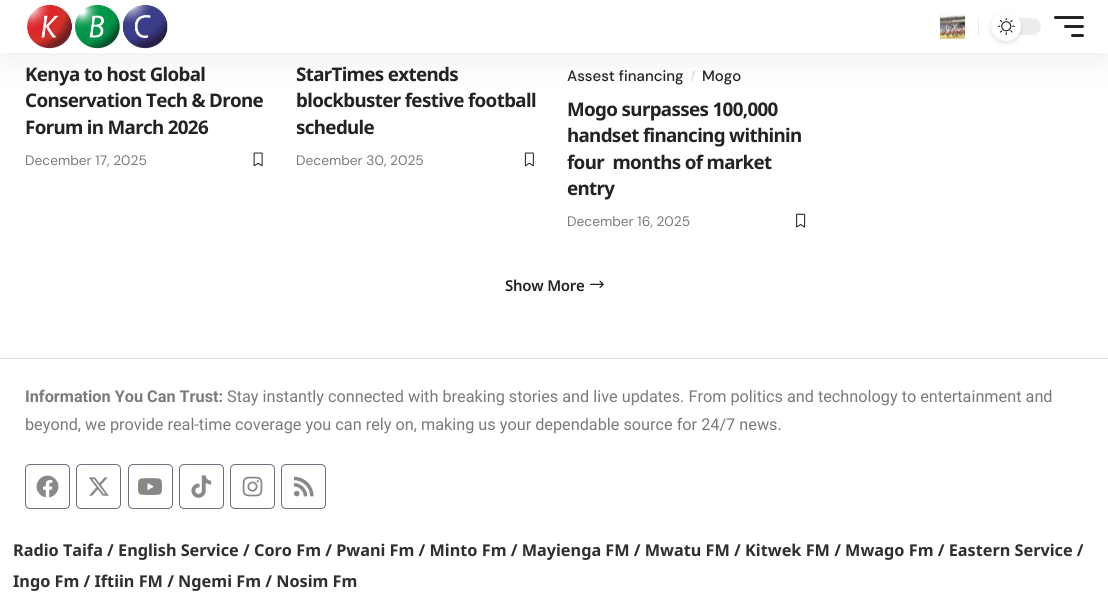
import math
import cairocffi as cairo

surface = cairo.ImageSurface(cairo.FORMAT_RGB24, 1108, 604)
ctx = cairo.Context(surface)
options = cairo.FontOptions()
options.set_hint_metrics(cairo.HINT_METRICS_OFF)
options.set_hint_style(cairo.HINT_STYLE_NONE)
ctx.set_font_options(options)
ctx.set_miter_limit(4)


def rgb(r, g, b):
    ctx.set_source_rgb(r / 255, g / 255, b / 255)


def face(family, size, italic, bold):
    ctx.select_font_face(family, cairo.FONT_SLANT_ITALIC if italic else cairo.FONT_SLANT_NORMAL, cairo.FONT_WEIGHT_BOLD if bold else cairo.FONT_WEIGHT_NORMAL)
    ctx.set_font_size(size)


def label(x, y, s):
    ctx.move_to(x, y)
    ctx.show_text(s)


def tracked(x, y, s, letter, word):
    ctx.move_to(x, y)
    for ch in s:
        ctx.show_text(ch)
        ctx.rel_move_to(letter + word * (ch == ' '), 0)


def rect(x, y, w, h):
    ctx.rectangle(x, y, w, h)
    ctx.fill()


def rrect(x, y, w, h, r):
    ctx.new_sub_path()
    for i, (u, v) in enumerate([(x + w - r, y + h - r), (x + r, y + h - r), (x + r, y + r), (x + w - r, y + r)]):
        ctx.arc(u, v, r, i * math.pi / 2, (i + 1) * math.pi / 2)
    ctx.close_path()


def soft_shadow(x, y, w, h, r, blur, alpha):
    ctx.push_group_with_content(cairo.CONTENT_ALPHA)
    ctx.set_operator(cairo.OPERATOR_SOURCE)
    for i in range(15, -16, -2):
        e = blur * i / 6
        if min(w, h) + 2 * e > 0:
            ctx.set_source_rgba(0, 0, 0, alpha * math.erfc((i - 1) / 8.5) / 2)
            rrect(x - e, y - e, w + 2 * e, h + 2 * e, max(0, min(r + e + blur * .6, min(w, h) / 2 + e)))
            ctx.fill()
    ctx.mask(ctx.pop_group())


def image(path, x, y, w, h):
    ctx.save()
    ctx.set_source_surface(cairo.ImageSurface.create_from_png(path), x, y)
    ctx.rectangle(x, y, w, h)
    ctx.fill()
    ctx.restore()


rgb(255, 255, 255)
ctx.paint()
rgb(214, 214, 214)
ctx.new_path()
ctx.move_to(693.5, 71)
ctx.line_to(695, 71)
ctx.line_to(692, 81)
ctx.line_to(691, 81)
ctx.close_path()
ctx.fill()
rgb(0, 0, 0)
soft_shadow(0, 5, 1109, 53, 0, 19, 0.07)
rgb(255, 255, 255)
rect(0, 0, 1108, 53)
image('image0.png', 27, 4, 141, 45)
image('image1.png', 940, 13, 25, 26)
rgb(234, 234, 234)
rect(978, 18, 1, 17)
rgb(237, 237, 237)
rrect(991, 18, 50, 17, 8.5)
ctx.fill()
rgb(0, 0, 0)
soft_shadow(991, 13, 30, 30, 15, 2.5, 0.12)
rgb(255, 255, 255)
ctx.arc(1006, 26, 15, 0, 2 * math.pi)
ctx.fill()
image('image2.png', 998, 18, 17, 17)
rgb(35, 35, 35)
rrect(1054, 16, 30, 3, 1.5)
ctx.fill()
rrect(1064, 25, 20, 3, 1.5)
ctx.fill()
rrect(1071, 34, 13, 3, 1.5)
ctx.fill()
face('Noto Sans', 18.75, 0, 1)
tracked(25, 81, 'Kenya to host Global', -0.65, 0)
tracked(25, 107, 'Conservation Tech & Drone', -0.65, 0)
tracked(25, 134, 'Forum in March 2026', -0.65, 0)
face('DM Sans', 13.75, 0, 0)
rgb(122, 122, 122)
label(25, 165, 'December 17, 2025')
image('image3.png', 253, 152, 10, 15)
face('Noto Sans', 18.75, 0, 1)
rgb(35, 35, 35)
tracked(296, 81, 'StarTimes extends', -0.65, 0)
tracked(296, 107, 'blockbuster festive football', -0.65, 0)
tracked(296, 134, 'schedule', -0.65, 0)
face('DM Sans', 13.75, 0, 0)
rgb(122, 122, 122)
label(296, 165, 'December 30, 2025')
image('image4.png', 524, 152, 10, 15)
face('DM Sans Medium', 15, 0, 0)
rgb(35, 35, 35)
label(567, 81, 'Assest financing')
label(702, 81, 'Mogo')
face('Noto Sans', 18.75, 0, 1)
tracked(567, 116, 'Mogo surpasses 100,000', -0.65, 0)
tracked(567, 142, 'handset financing withinin', -0.65, 0)
tracked(567, 169, 'four  months of market', -0.65, 0)
tracked(567, 195, 'entry', -0.65, 0)
face('DM Sans', 13.75, 0, 0)
rgb(122, 122, 122)
label(567, 226, 'December 16, 2025')
image('image5.png', 796, 213, 10, 15)
face('Noto Sans SemiBold', 15, 0, 0)
rgb(35, 35, 35)
tracked(505, 291, 'Show More', -0.25, 0)
image('image6.png', 590, 280, 14, 9)
rgb(223, 223, 223)
rect(0, 358, 1108, 1)
face('Roboto', 16.25, 0, 1)
rgb(122, 122, 122)
label(25, 402, 'Information You Can Trust:')
face('Roboto', 16.25, 0, 0)
label(227, 402, 'Stay instantly connected with breaking stories and live updates. From politics and technology to entertainment and')
label(25, 430, 'beyond, we provide real-time coverage you can rely on, making us your dependable source for 24/7 news.')
rrect(25.5, 464.5, 44, 44, 4.5)
rgb(105, 114, 125)
ctx.set_line_width(1)
ctx.stroke()
image('image7.png', 36, 475, 23, 23)
rrect(76.5, 464.5, 44, 44, 4.5)
ctx.stroke()
image('image8.png', 88, 477, 21, 19)
rrect(128.5, 464.5, 44, 44, 4.5)
ctx.stroke()
image('image9.png', 138, 478, 24, 17)
rrect(179.5, 464.5, 44, 44, 4.5)
ctx.stroke()
image('image10.png', 191, 475, 21, 23)
rrect(230.5, 464.5, 44, 44, 4.5)
ctx.stroke()
image('image11.png', 242, 476, 21, 21)
rrect(281.5, 464.5, 44, 44, 4.5)
ctx.stroke()
image('image12.png', 293, 476, 21, 21)
face('Noto Sans', 16.25, 0, 1)
rgb(47, 47, 48)
label(13, 556, 'Radio Taifa / English Service / Coro Fm / Pwani Fm / Minto Fm / Mayienga FM / Mwatu FM / Kitwek FM / Mwago Fm / Eastern Service /')
label(13, 587, 'Ingo Fm / Iftiin FM / Ngemi Fm / Nosim Fm')
surface.write_to_png('render.png')
